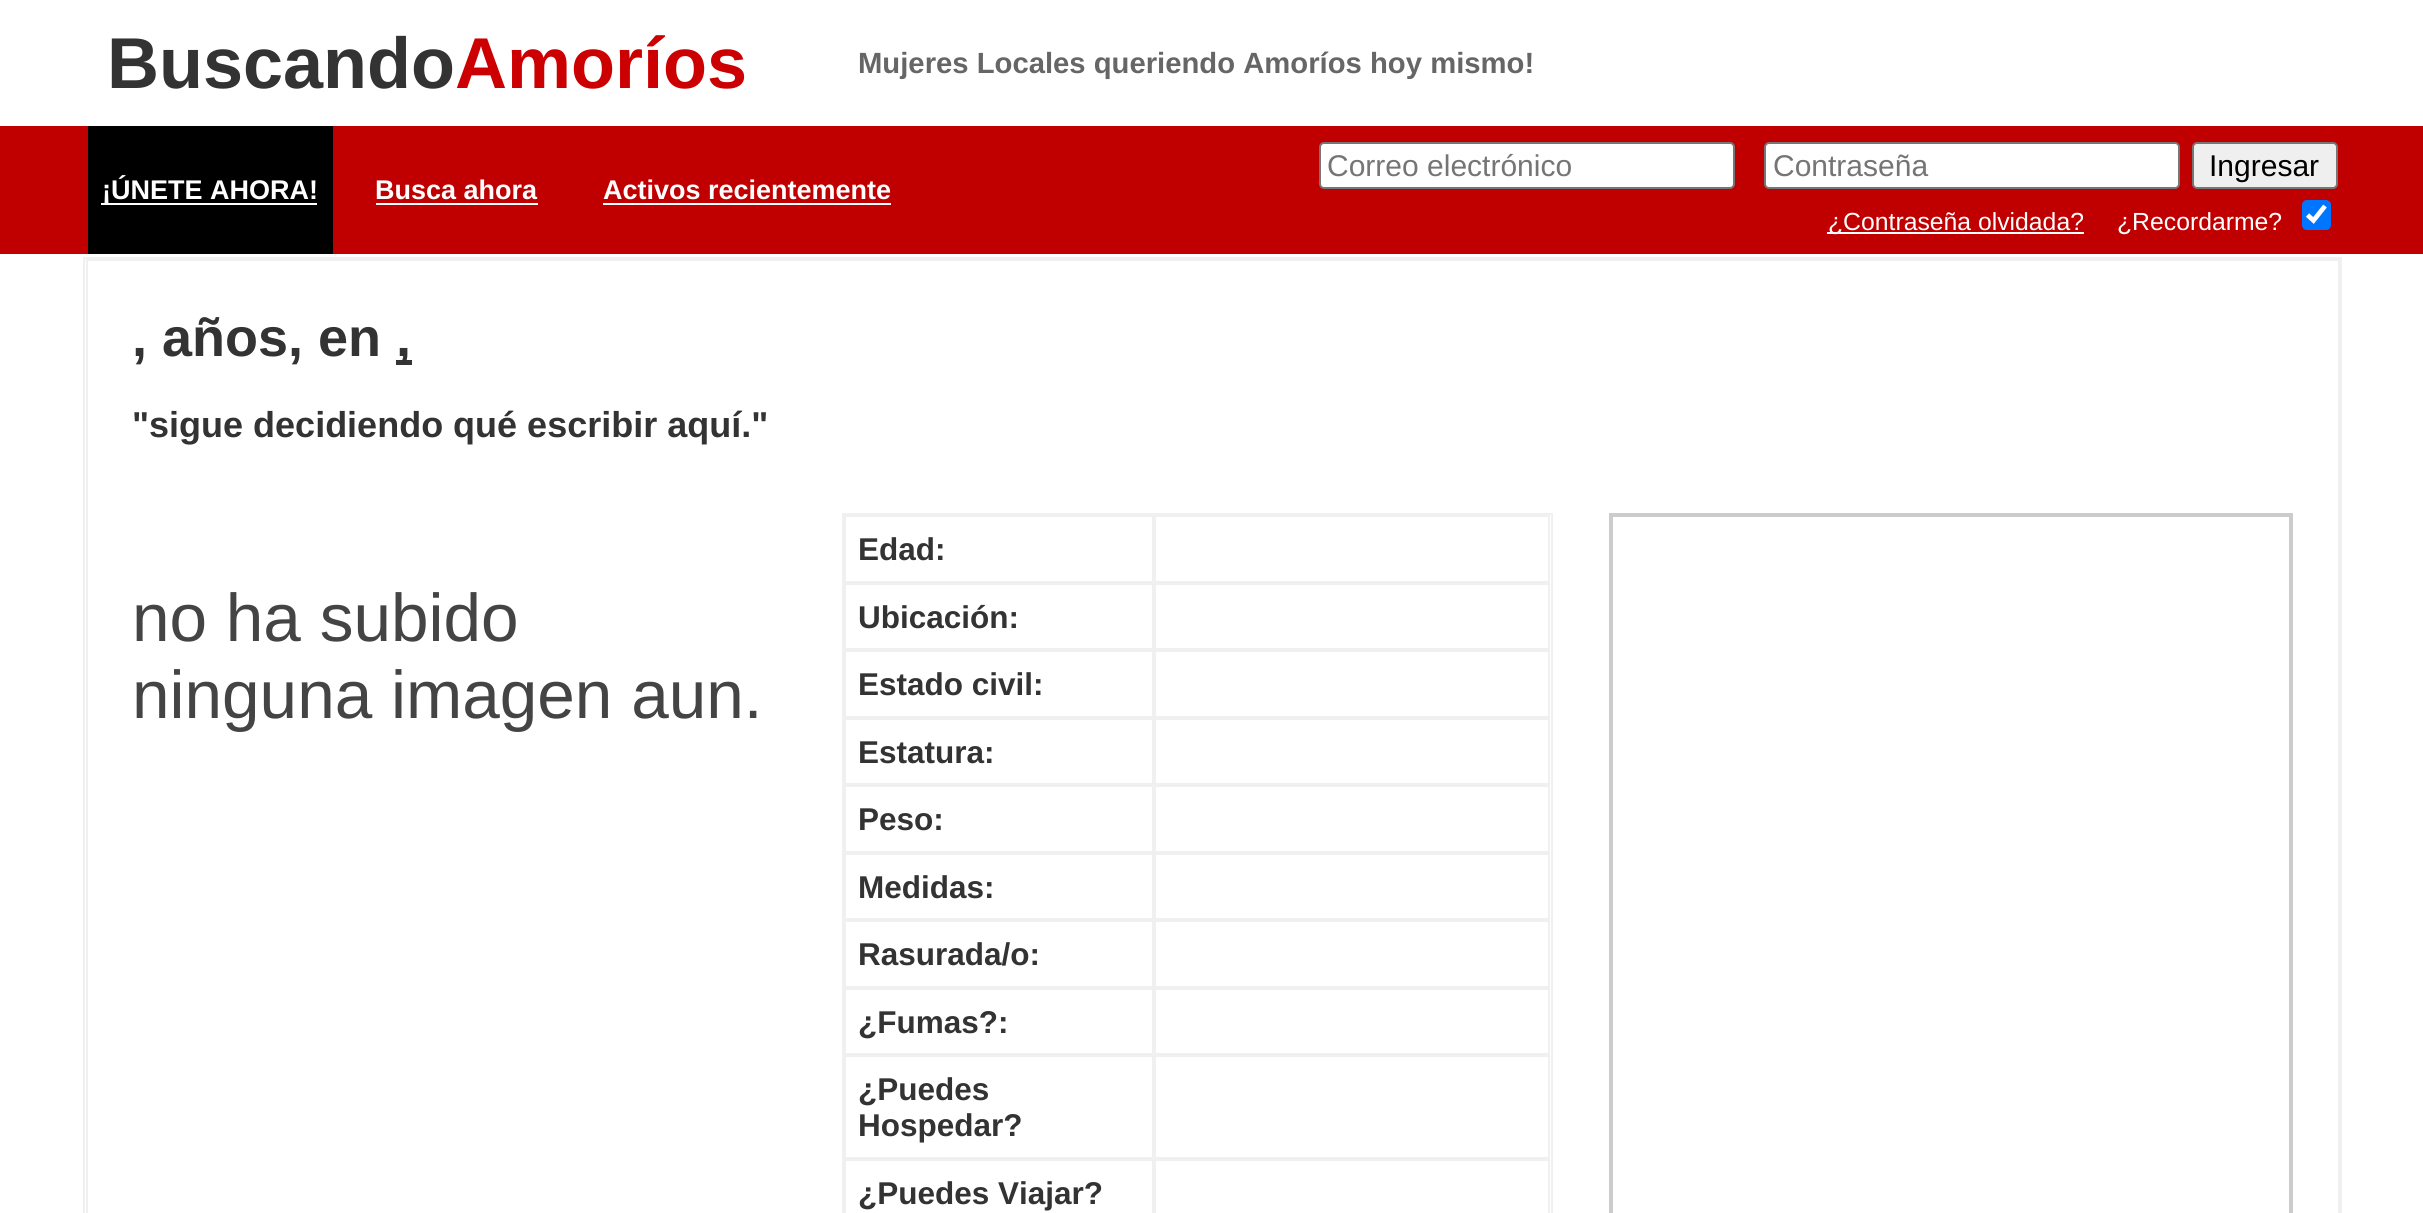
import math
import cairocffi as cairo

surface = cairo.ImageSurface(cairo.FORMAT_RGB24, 2423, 1213)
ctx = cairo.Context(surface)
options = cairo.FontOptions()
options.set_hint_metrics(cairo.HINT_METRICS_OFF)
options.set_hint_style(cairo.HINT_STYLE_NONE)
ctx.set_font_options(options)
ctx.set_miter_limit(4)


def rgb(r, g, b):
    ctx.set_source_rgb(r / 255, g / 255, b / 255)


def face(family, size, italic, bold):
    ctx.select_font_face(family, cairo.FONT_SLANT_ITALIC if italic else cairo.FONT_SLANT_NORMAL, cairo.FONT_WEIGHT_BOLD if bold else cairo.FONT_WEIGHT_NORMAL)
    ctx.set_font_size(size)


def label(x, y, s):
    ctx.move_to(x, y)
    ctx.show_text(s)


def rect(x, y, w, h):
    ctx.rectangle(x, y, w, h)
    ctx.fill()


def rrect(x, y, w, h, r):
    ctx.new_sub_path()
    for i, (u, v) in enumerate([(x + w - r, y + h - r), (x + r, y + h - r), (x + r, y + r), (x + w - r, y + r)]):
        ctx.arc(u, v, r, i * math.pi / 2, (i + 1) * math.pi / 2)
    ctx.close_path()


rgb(255, 255, 255)
ctx.paint()
face('Liberation Sans', 72, 0, 1)
rgb(51, 51, 51)
label(107, 88, 'Buscando')
rgb(204, 0, 0)
label(455, 88, 'Amoríos')
face('Liberation Sans', 29.25, 0, 1)
rgb(102, 102, 102)
label(858, 73, 'Mujeres Locales queriendo Amoríos hoy mismo!')
rgb(192, 0, 0)
rect(0, 126, 2423, 128)
rgb(0, 0, 0)
rect(88, 126, 245, 128)
rgb(255, 255, 255)
rect(101, 203, 216, 2)
face('Liberation Sans', 27, 0, 1)
label(102, 199, '¡ÚNETE AHORA!')
label(375, 199, 'Busca ahora')
rect(376, 203, 162, 2)
label(603, 199, 'Activos recientemente')
rect(603, 203, 288, 2)
rrect(1320, 143, 414, 45, 4)
ctx.fill_preserve()
rgb(118, 118, 118)
ctx.stroke()
face('Liberation Sans', 30, 0, 0)
rgb(117, 117, 117)
label(1327, 176, 'Correo electrónico')
rgb(255, 255, 255)
rrect(1765, 143, 414, 45, 4)
ctx.fill_preserve()
rgb(118, 118, 118)
ctx.stroke()
rgb(117, 117, 117)
label(1773, 176, 'Contraseña')
rgb(239, 239, 239)
rrect(2193, 143, 144, 45, 4)
ctx.fill_preserve()
rgb(118, 118, 118)
ctx.stroke()
rgb(0, 0, 0)
label(2209, 176, 'Ingresar')
rgb(255, 255, 255)
rect(1827, 232, 257, 2)
face('Liberation Sans', 24.75, 0, 0)
label(1828, 230, '¿Contraseña olvidada?')
label(2117, 230, '¿Recordarme?')
rgb(0, 117, 255)
rrect(2302, 200, 29, 30, 5)
ctx.fill()
ctx.new_path()
ctx.move_to(2307.5, 215)
ctx.line_to(2313.5, 220.5)
ctx.line_to(2325, 206)
rgb(255, 255, 255)
ctx.set_line_width(4.7)
ctx.stroke()
ctx.rectangle(84, 258, 2257, 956)
rgb(240, 240, 240)
ctx.set_line_width(2)
ctx.stroke()
ctx.rectangle(87, 260, 2252, 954)
ctx.stroke()
face('Liberation Sans', 54, 0, 1)
rgb(51, 51, 51)
label(132, 356, ', años, en')
rgb(53, 53, 53)
rect(396, 360, 16, 5)
rgb(51, 51, 51)
label(396, 356, ',')
face('Liberation Sans', 36, 0, 1)
label(132, 437, '"sigue decidiendo qué escribir aquí."')
face('Liberation Sans', 67.5, 0, 0)
rgb(68, 68, 68)
label(132, 641, 'no ha subido')
label(132, 718, 'ninguna imagen aun.')
ctx.rectangle(843, 514, 709, 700)
rgb(240, 240, 240)
ctx.stroke()
ctx.rectangle(845, 516, 308, 66)
ctx.stroke()
face('Liberation Sans', 31.5, 0, 1)
rgb(51, 51, 51)
label(858, 560, 'Edad:')
ctx.rectangle(1155, 516, 394, 66)
rgb(240, 240, 240)
ctx.stroke()
ctx.rectangle(845, 584, 308, 65)
ctx.stroke()
rgb(51, 51, 51)
label(858, 628, 'Ubicación:')
ctx.rectangle(1155, 584, 394, 65)
rgb(240, 240, 240)
ctx.stroke()
ctx.rectangle(845, 651, 308, 66)
ctx.stroke()
rgb(51, 51, 51)
label(858, 695, 'Estado civil:')
ctx.rectangle(1155, 651, 394, 66)
rgb(240, 240, 240)
ctx.stroke()
ctx.rectangle(845, 719, 308, 65)
ctx.stroke()
rgb(51, 51, 51)
label(858, 763, 'Estatura:')
ctx.rectangle(1155, 719, 394, 65)
rgb(240, 240, 240)
ctx.stroke()
ctx.rectangle(845, 786, 308, 66)
ctx.stroke()
rgb(51, 51, 51)
label(858, 830, 'Peso:')
ctx.rectangle(1155, 786, 394, 66)
rgb(240, 240, 240)
ctx.stroke()
ctx.rectangle(845, 854, 308, 65)
ctx.stroke()
rgb(51, 51, 51)
label(858, 898, 'Medidas:')
ctx.rectangle(1155, 854, 394, 65)
rgb(240, 240, 240)
ctx.stroke()
ctx.rectangle(845, 921, 308, 66)
ctx.stroke()
rgb(51, 51, 51)
label(858, 965, 'Rasurada/o:')
ctx.rectangle(1155, 921, 394, 66)
rgb(240, 240, 240)
ctx.stroke()
ctx.rectangle(845, 989, 308, 65)
ctx.stroke()
rgb(51, 51, 51)
label(858, 1033, '¿Fumas?:')
ctx.rectangle(1155, 989, 394, 65)
rgb(240, 240, 240)
ctx.stroke()
ctx.rectangle(845, 1056, 308, 102)
ctx.stroke()
rgb(51, 51, 51)
label(858, 1100, '¿Puedes')
label(858, 1136, 'Hospedar?')
ctx.rectangle(1155, 1056, 394, 102)
rgb(240, 240, 240)
ctx.stroke()
ctx.rectangle(845, 1160, 308, 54)
ctx.stroke()
rgb(51, 51, 51)
label(858, 1204, '¿Puedes Viajar?')
ctx.rectangle(1155, 1160, 394, 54)
rgb(240, 240, 240)
ctx.stroke()
ctx.rectangle(1610, 514, 682, 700)
rgb(204, 204, 204)
ctx.stroke()
ctx.rectangle(1612, 516, 678, 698)
ctx.stroke()
surface.write_to_png('render.png')
